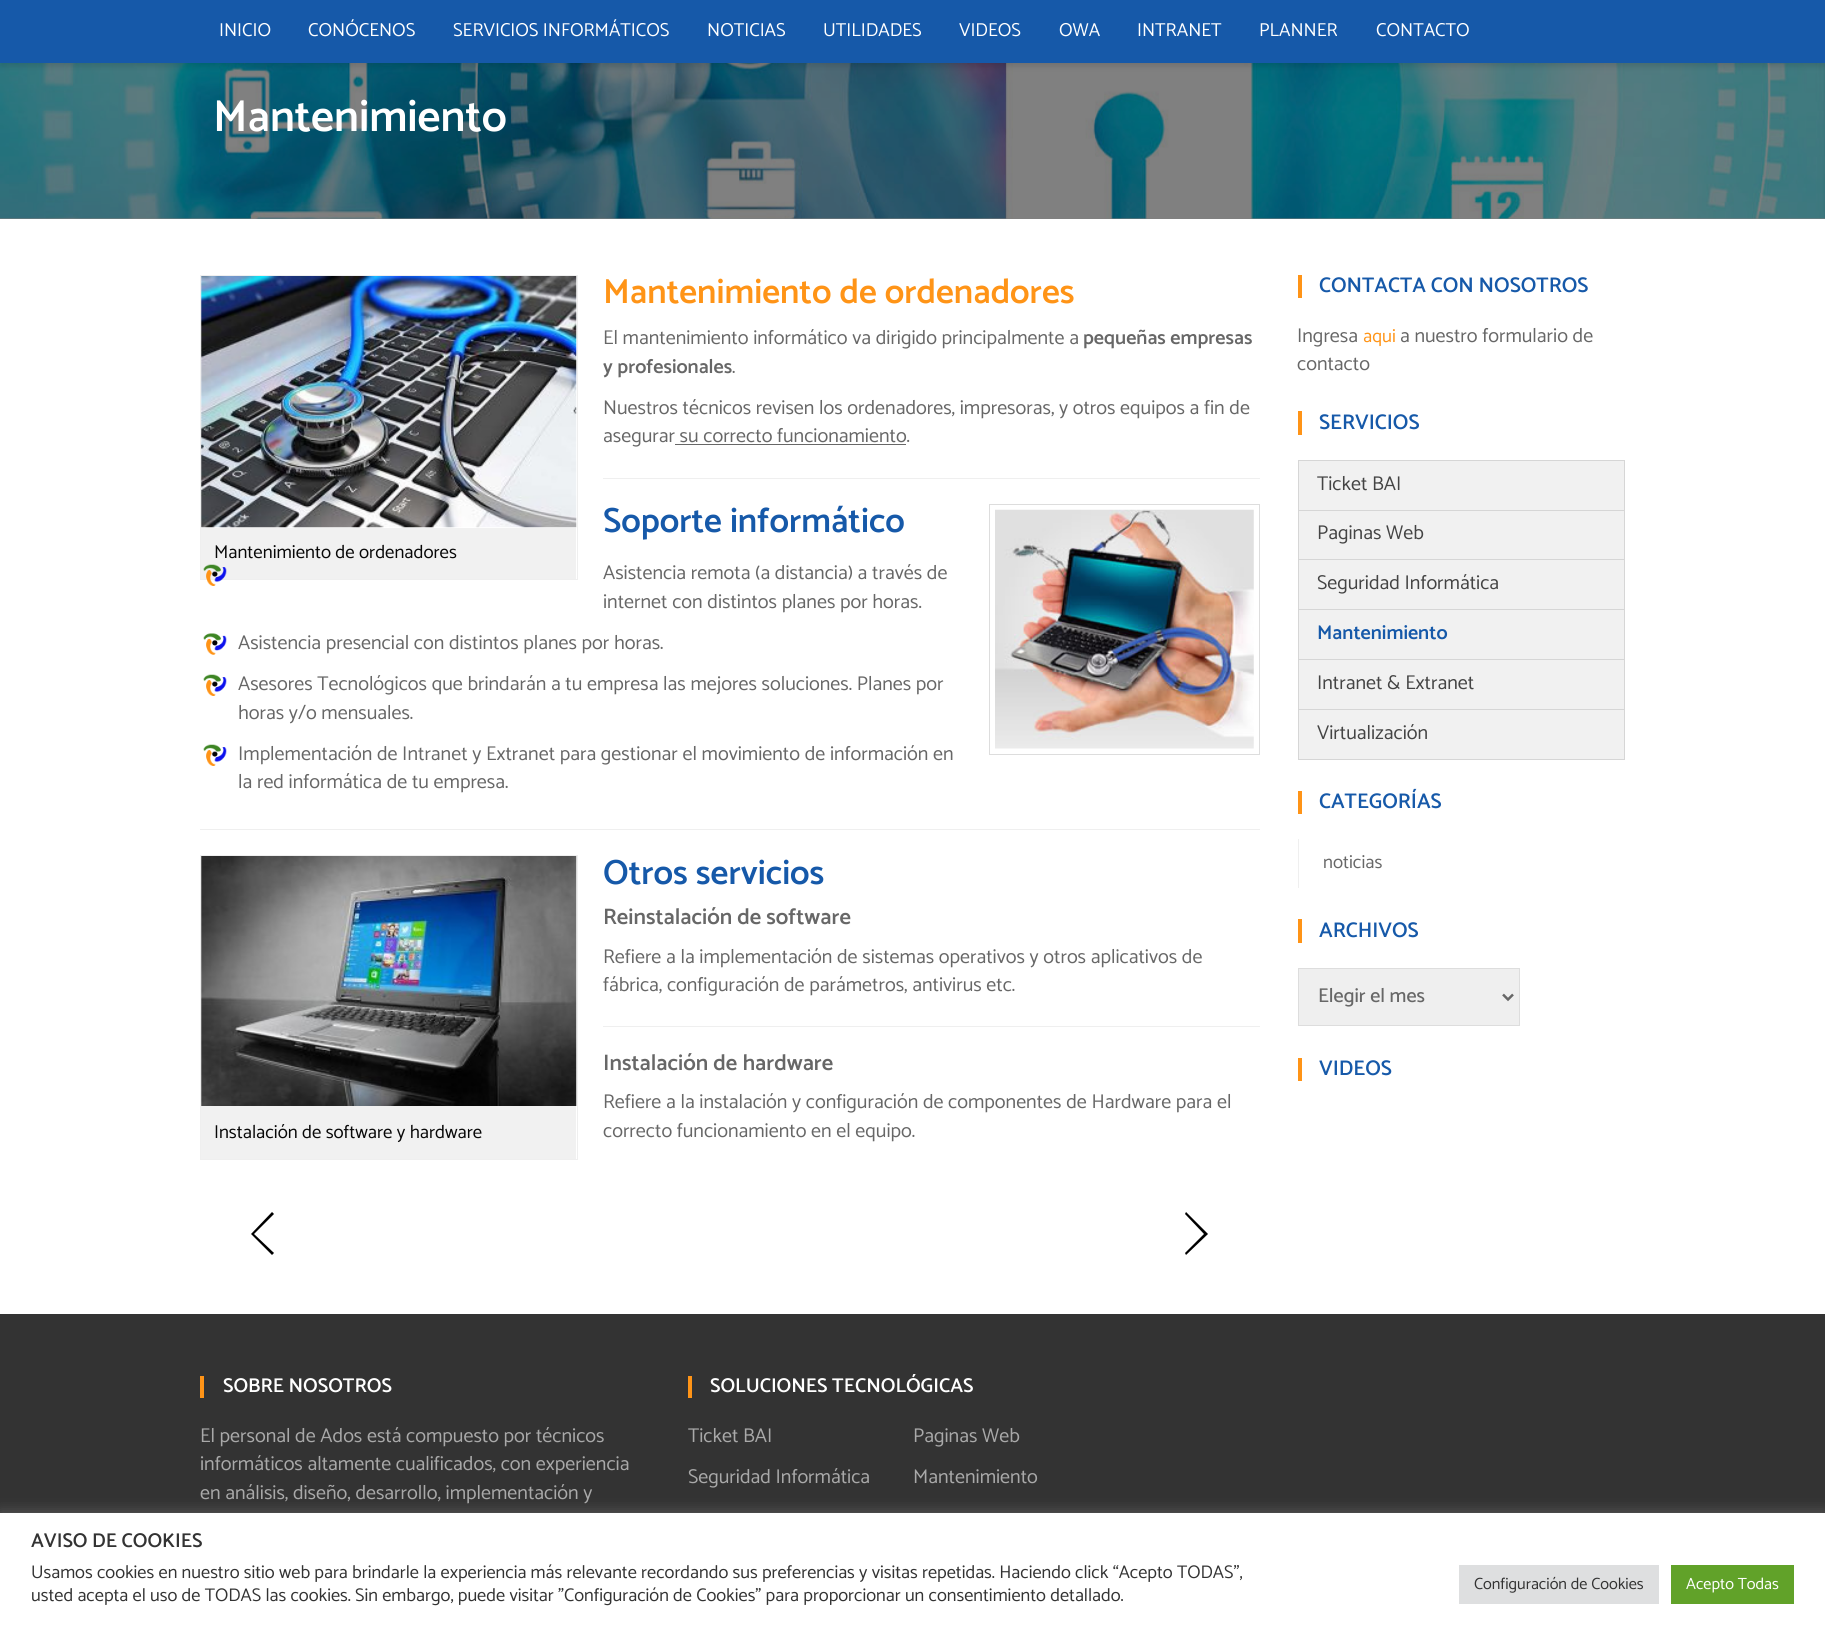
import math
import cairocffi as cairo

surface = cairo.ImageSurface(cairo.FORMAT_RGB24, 1825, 1627)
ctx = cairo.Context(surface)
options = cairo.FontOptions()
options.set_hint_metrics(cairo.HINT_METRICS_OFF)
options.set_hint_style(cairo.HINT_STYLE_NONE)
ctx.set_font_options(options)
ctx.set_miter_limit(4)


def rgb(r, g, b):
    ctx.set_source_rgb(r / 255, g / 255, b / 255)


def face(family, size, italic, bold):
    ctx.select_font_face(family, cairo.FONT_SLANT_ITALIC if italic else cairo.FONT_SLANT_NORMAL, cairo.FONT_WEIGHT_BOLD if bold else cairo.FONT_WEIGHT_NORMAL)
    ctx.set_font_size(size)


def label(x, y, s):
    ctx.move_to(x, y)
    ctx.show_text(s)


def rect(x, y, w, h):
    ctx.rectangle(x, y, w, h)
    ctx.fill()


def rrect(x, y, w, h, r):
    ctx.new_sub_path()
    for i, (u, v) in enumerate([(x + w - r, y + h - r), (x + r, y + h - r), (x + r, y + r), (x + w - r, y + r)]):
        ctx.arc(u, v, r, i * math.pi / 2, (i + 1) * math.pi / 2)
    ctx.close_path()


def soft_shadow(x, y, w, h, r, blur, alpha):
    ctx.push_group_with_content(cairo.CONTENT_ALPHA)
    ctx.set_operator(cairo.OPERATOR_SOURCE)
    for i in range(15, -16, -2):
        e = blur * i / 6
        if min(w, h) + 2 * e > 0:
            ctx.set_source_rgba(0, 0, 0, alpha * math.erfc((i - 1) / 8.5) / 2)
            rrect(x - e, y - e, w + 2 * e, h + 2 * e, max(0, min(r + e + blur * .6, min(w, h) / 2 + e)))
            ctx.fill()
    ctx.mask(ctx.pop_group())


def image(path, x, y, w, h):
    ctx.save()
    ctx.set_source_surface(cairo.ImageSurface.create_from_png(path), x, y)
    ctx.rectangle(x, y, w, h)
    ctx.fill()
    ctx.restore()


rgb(255, 255, 255)
ctx.paint()
rgb(128, 128, 128)
rect(0, 218, 1825, 1)
image('image0.png', 0, 63, 1825, 156)
rgb(0, 0, 0)
soft_shadow(0, 4, 1825, 62, 0, 3, 0.13)
rgb(22, 89, 169)
rect(0, 0, 1825, 63)
face('Catamaran', 18.75, 0, 0)
rgb(255, 255, 255)
label(219, 36, 'INICIO')
label(308, 36, 'CONÓCENOS')
label(453, 36, 'SERVICIOS INFORMÁTICOS')
label(707, 36, 'NOTICIAS')
label(823, 36, 'UTILIDADES')
label(959, 36, 'VIDEOS')
label(1059, 36, 'OWA')
label(1137, 36, 'INTRANET')
label(1259, 36, 'PLANNER')
label(1376, 36, 'CONTACTO')
face('Catamaran SemiBold', 45, 0, 0)
label(213, 131, 'Mantenimiento')
face('Catamaran SemiBold', 35, 0, 0)
rgb(255, 148, 23)
label(603, 303, 'Mantenimiento de ordenadores')
face('Catamaran', 20, 0, 0)
rgb(103, 103, 103)
label(603, 344, 'El mantenimiento informático va dirigido principalmente a')
face('Catamaran SemiBold', 20, 0, 0)
label(1083, 344, 'pequeñas empresas')
label(603, 373, 'y profesionales')
face('Catamaran', 20, 0, 0)
label(732, 373, '.')
label(603, 414, 'Nuestros técnicos revisen los ordenadores, impresoras, y otros equipos a fin de')
label(603, 442, 'asegurar su correcto funcionamiento.')
rect(675, 444, 231, 1)
rgb(239, 239, 239)
rect(603, 478, 657, 1)
face('Catamaran SemiBold', 35, 0, 0)
rgb(22, 89, 169)
label(603, 532, 'Soporte informático')
ctx.rectangle(989.5, 504.5, 270, 250)
rgb(221, 221, 221)
ctx.set_line_width(1)
ctx.stroke()
image('image1.png', 995, 509, 259, 240)
ctx.rectangle(200.5, 275.5, 377, 304)
rgb(239, 239, 239)
ctx.stroke()
image('image2.png', 201, 276, 376, 252)
rgb(241, 241, 241)
rect(201, 528, 375, 51)
face('Catamaran', 18.75, 0, 0)
rgb(8, 8, 8)
label(214, 558, 'Mantenimiento de ordenadores')
image('image3.png', 203, 564, 24, 22)
face('Catamaran', 20, 0, 0)
rgb(103, 103, 103)
label(603, 579, 'Asistencia remota (a distancia) a través de')
label(603, 608, 'internet con distintos planes por horas.')
image('image4.png', 203, 633, 24, 22)
label(238, 649, 'Asistencia presencial con distintos planes por horas.')
image('image5.png', 203, 674, 24, 22)
label(238, 690, 'Asesores Tecnológicos que brindarán a tu empresa las mejores soluciones. Planes por')
label(238, 719, 'horas y/o mensuales.')
image('image5.png', 203, 744, 24, 22)
label(238, 760, 'Implementación de Intranet y Extranet para gestionar el movimiento de información en')
label(238, 788, 'la red informática de tu empresa.')
rgb(239, 239, 239)
rect(200, 829, 1060, 1)
face('Catamaran SemiBold', 35, 0, 0)
rgb(22, 89, 169)
label(603, 884, 'Otros servicios')
face('Catamaran SemiBold', 22.5, 0, 0)
rgb(103, 103, 103)
label(603, 924, 'Reinstalación de software')
face('Catamaran', 20, 0, 0)
label(603, 963, 'Refiere a la implementación de sistemas operativos y otros aplicativos de')
label(603, 991, 'fábrica, configuración de parámetros, antivirus etc.')
rgb(239, 239, 239)
rect(603, 1026, 657, 1)
face('Catamaran SemiBold', 22.5, 0, 0)
rgb(103, 103, 103)
label(603, 1070, 'Instalación de hardware')
ctx.rectangle(200.5, 855.5, 377, 304)
rgb(239, 239, 239)
ctx.stroke()
image('image6.png', 201, 856, 376, 250)
rgb(241, 241, 241)
rect(201, 1106, 375, 53)
face('Catamaran', 18.75, 0, 0)
rgb(8, 8, 8)
label(214, 1138, 'Instalación de software y hardware')
face('Catamaran', 20, 0, 0)
rgb(103, 103, 103)
label(603, 1108, 'Refiere a la instalación y configuración de componentes de Hardware para el')
label(603, 1137, 'correcto funcionamiento en el equipo.')
rgb(0, 0, 0)
ctx.new_path()
ctx.move_to(272, 1255)
ctx.line_to(251, 1234)
ctx.line_to(272, 1212)
ctx.line_to(274, 1214)
ctx.line_to(254, 1234)
ctx.line_to(274, 1253)
ctx.close_path()
ctx.fill()
ctx.new_path()
ctx.move_to(1185, 1214)
ctx.line_to(1186, 1212)
ctx.line_to(1208, 1234)
ctx.line_to(1186, 1255)
ctx.line_to(1185, 1253)
ctx.line_to(1204, 1234)
ctx.close_path()
ctx.fill()
rgb(255, 148, 23)
rect(1298, 275, 4, 23)
face('Catamaran SemiBold', 21.25, 0, 0)
rgb(22, 89, 169)
label(1319, 292, 'CONTACTA CON NOSOTROS')
face('Catamaran', 20, 0, 0)
rgb(103, 103, 103)
label(1297, 342, 'Ingresa')
face('Catamaran', 18.75, 0, 0)
rgb(255, 148, 23)
label(1363, 342, 'aqui')
face('Catamaran', 20, 0, 0)
rgb(103, 103, 103)
label(1400, 342, 'a nuestro formulario de')
label(1297, 370, 'contacto')
rgb(255, 148, 23)
rect(1298, 411, 4, 24)
face('Catamaran SemiBold', 21.25, 0, 0)
rgb(22, 89, 169)
label(1319, 429, 'SERVICIOS')
rgb(241, 241, 241)
rect(1299, 461, 325, 298)
rgb(214, 214, 214)
rect(1624, 460, 1, 300)
rect(1298, 759, 327, 1)
rect(1298, 460, 1, 300)
rect(1299, 460, 325, 1)
face('Catamaran', 20, 0, 0)
rgb(68, 68, 68)
label(1317, 490, 'Ticket BAI')
rgb(214, 214, 214)
rect(1299, 510, 325, 1)
rgb(68, 68, 68)
label(1317, 539, 'Paginas Web')
rgb(214, 214, 214)
rect(1299, 559, 325, 1)
rgb(68, 68, 68)
label(1317, 589, 'Seguridad Informática')
rgb(214, 214, 214)
rect(1299, 609, 325, 1)
face('Catamaran SemiBold', 20, 0, 0)
rgb(22, 89, 169)
label(1317, 639, 'Mantenimiento')
rgb(214, 214, 214)
rect(1299, 659, 325, 1)
face('Catamaran', 20, 0, 0)
rgb(68, 68, 68)
label(1317, 689, 'Intranet & Extranet')
rgb(214, 214, 214)
rect(1299, 709, 325, 1)
rgb(68, 68, 68)
label(1317, 739, 'Virtualización')
rgb(255, 148, 23)
rect(1298, 791, 4, 23)
face('Catamaran SemiBold', 21.25, 0, 0)
rgb(22, 89, 169)
label(1319, 808, 'CATEGORÍAS')
rgb(239, 239, 239)
rect(1298, 839, 1, 49)
face('Catamaran', 18.75, 0, 0)
rgb(103, 103, 103)
label(1323, 868, 'noticias')
rgb(255, 148, 23)
rect(1298, 919, 4, 24)
face('Catamaran SemiBold', 21.25, 0, 0)
rgb(22, 89, 169)
label(1319, 937, 'ARCHIVOS')
rgb(239, 239, 239)
ctx.rectangle(1298.5, 968.5, 221, 57)
ctx.fill_preserve()
rgb(221, 221, 221)
ctx.stroke()
ctx.new_path()
ctx.move_to(1503, 994.5)
ctx.line_to(1508, 999.5)
ctx.line_to(1513, 994.5)
rgb(103, 103, 103)
ctx.set_line_width(2.5)
ctx.stroke()
face('Catamaran Medium', 20, 0, 0)
label(1318, 1002, 'Elegir el mes')
rgb(255, 148, 23)
rect(1298, 1058, 4, 23)
face('Catamaran SemiBold', 21.25, 0, 0)
rgb(22, 89, 169)
label(1319, 1075, 'VIDEOS')
rgb(51, 51, 51)
rect(0, 1314, 1825, 199)
rgb(255, 148, 23)
rect(200, 1376, 4, 22)
face('Catamaran SemiBold', 20, 0, 0)
rgb(255, 255, 255)
label(223, 1392, 'SOBRE NOSOTROS')
face('Catamaran', 20, 0, 0)
rgb(169, 169, 169)
label(200, 1442, 'El personal de Ados está compuesto por técnicos')
label(200, 1470, 'informáticos altamente cualificados, con experiencia')
label(200, 1499, 'en análisis, diseño, desarrollo, implementación y')
rgb(255, 148, 23)
rect(688, 1376, 4, 22)
face('Catamaran SemiBold', 20, 0, 0)
rgb(255, 255, 255)
label(710, 1392, 'SOLUCIONES TECNOLÓGICAS')
face('Catamaran', 20, 0, 0)
rgb(169, 169, 169)
label(688, 1442, 'Ticket BAI')
label(913, 1442, 'Paginas Web')
label(688, 1483, 'Seguridad Informática')
label(913, 1483, 'Mantenimiento')
rgb(172, 171, 171)
soft_shadow(0, 1511, 1825, 115, 0, 6, 0.3)
rgb(255, 255, 255)
rect(0, 1513, 1825, 114)
face('Catamaran SemiBold', 20, 0, 0)
rgb(51, 51, 51)
label(31, 1547, 'AVISO DE COOKIES')
face('Catamaran', 18.33, 0, 0)
label(31, 1578, 'Usamos cookies en nuestro sitio web para brindarle la experiencia más relevante recordando sus preferencias y visitas repetidas. Haciendo click “Acepto TODAS”,')
label(31, 1601, 'usted acepta el uso de TODAS las cookies. Sin embargo, puede visitar "Configuración de Cookies" para proporcionar un consentimiento detallado.')
rgb(222, 223, 224)
rect(1459, 1565, 200, 39)
face('Catamaran', 16.25, 0, 0)
rgb(51, 51, 51)
label(1474, 1589, 'Configuración de Cookies')
rgb(97, 162, 41)
rect(1671, 1565, 123, 39)
rgb(255, 255, 255)
label(1686, 1589, 'Acepto Todas')
surface.write_to_png('render.png')
